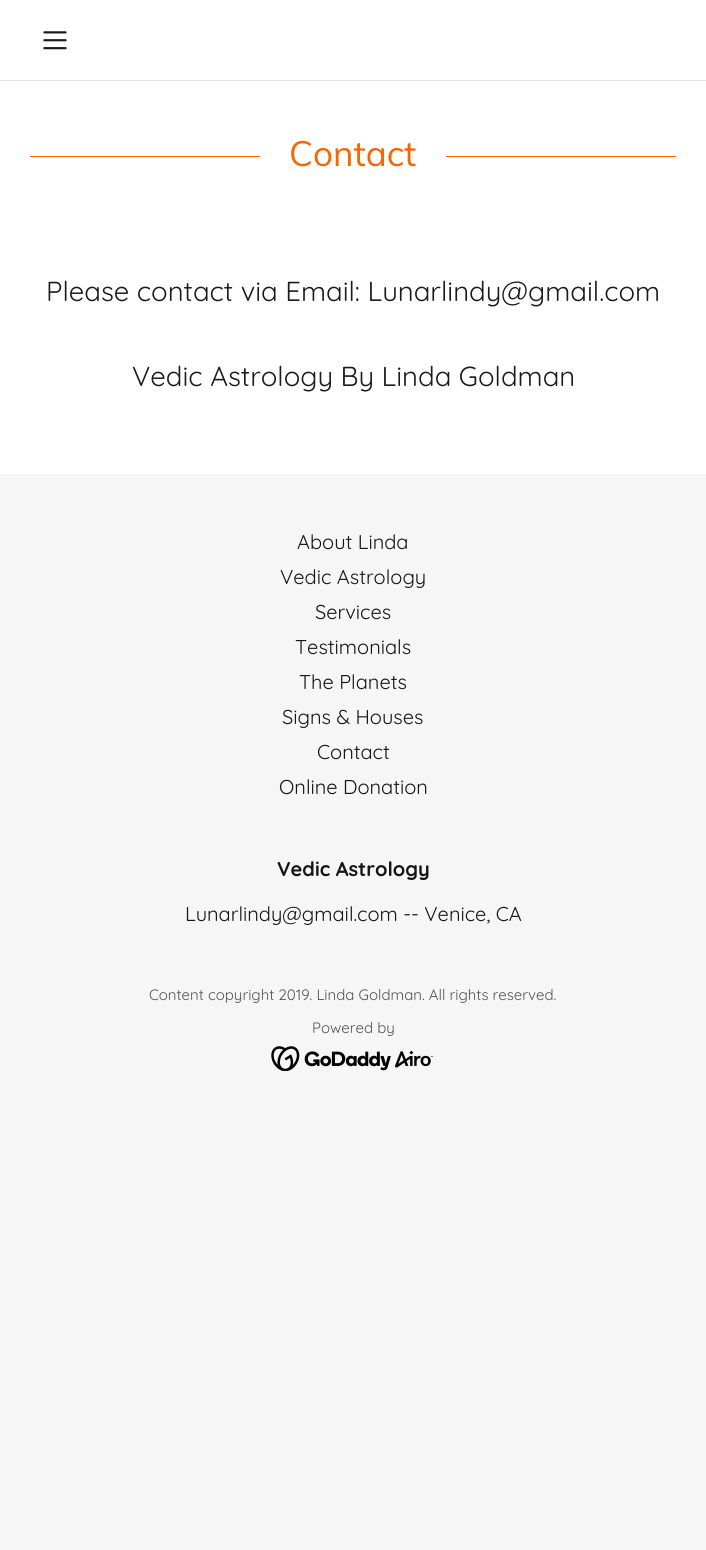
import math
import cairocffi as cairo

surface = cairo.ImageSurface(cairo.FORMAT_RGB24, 706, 1550)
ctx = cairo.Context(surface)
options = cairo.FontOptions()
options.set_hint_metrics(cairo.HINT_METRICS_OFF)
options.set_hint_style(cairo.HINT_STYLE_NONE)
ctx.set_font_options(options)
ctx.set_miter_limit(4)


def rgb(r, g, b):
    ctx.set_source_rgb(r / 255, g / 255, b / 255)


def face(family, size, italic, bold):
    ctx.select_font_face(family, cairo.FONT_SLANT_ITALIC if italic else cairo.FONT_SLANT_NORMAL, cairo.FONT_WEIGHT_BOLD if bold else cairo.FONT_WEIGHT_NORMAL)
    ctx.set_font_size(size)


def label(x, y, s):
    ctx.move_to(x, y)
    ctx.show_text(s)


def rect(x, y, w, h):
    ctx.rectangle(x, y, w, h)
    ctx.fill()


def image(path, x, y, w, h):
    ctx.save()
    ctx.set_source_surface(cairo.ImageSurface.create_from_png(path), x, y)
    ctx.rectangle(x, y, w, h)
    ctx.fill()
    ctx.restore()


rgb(246, 246, 246)
ctx.paint()
rgb(255, 255, 255)
rect(0, 0, 706, 80)
image('image0.png', 43, 31, 24, 19)
rgb(226, 226, 226)
rect(0, 80, 706, 1)
rgb(255, 255, 255)
rect(0, 81, 706, 393)
rgb(247, 102, 0)
rect(30, 156, 230, 1)
face('Muli', 35, 0, 0)
label(289, 166, 'Contact')
rect(446, 156, 230, 1)
face('Quicksand', 27.5, 0, 0)
rgb(27, 27, 27)
label(46, 301, 'Please contact via Email: Lunarlindy@gmail.com')
label(132, 386, 'Vedic Astrology By Linda Goldman')
face('Quicksand', 20, 0, 0)
rgb(21, 21, 21)
label(297, 549, 'About Linda')
label(280, 584, 'Vedic Astrology')
label(315, 619, 'Services')
label(295, 654, 'Testimonials')
label(299, 689, 'The Planets')
label(282, 724, 'Signs & Houses')
label(317, 759, 'Contact')
label(279, 794, 'Online Donation')
face('Quicksand', 20, 0, 1)
label(277, 876, 'Vedic Astrology')
face('Quicksand', 20, 0, 0)
label(185, 921, 'Lunarlindy@gmail.com -- Venice, CA')
face('Quicksand', 15, 0, 0)
rgb(82, 82, 82)
label(149, 1000, 'Content copyright 2019. Linda Goldman. All rights reserved.')
label(312, 1033, 'Powered by')
image('image1.png', 271, 1046, 162, 25)
surface.write_to_png('render.png')
